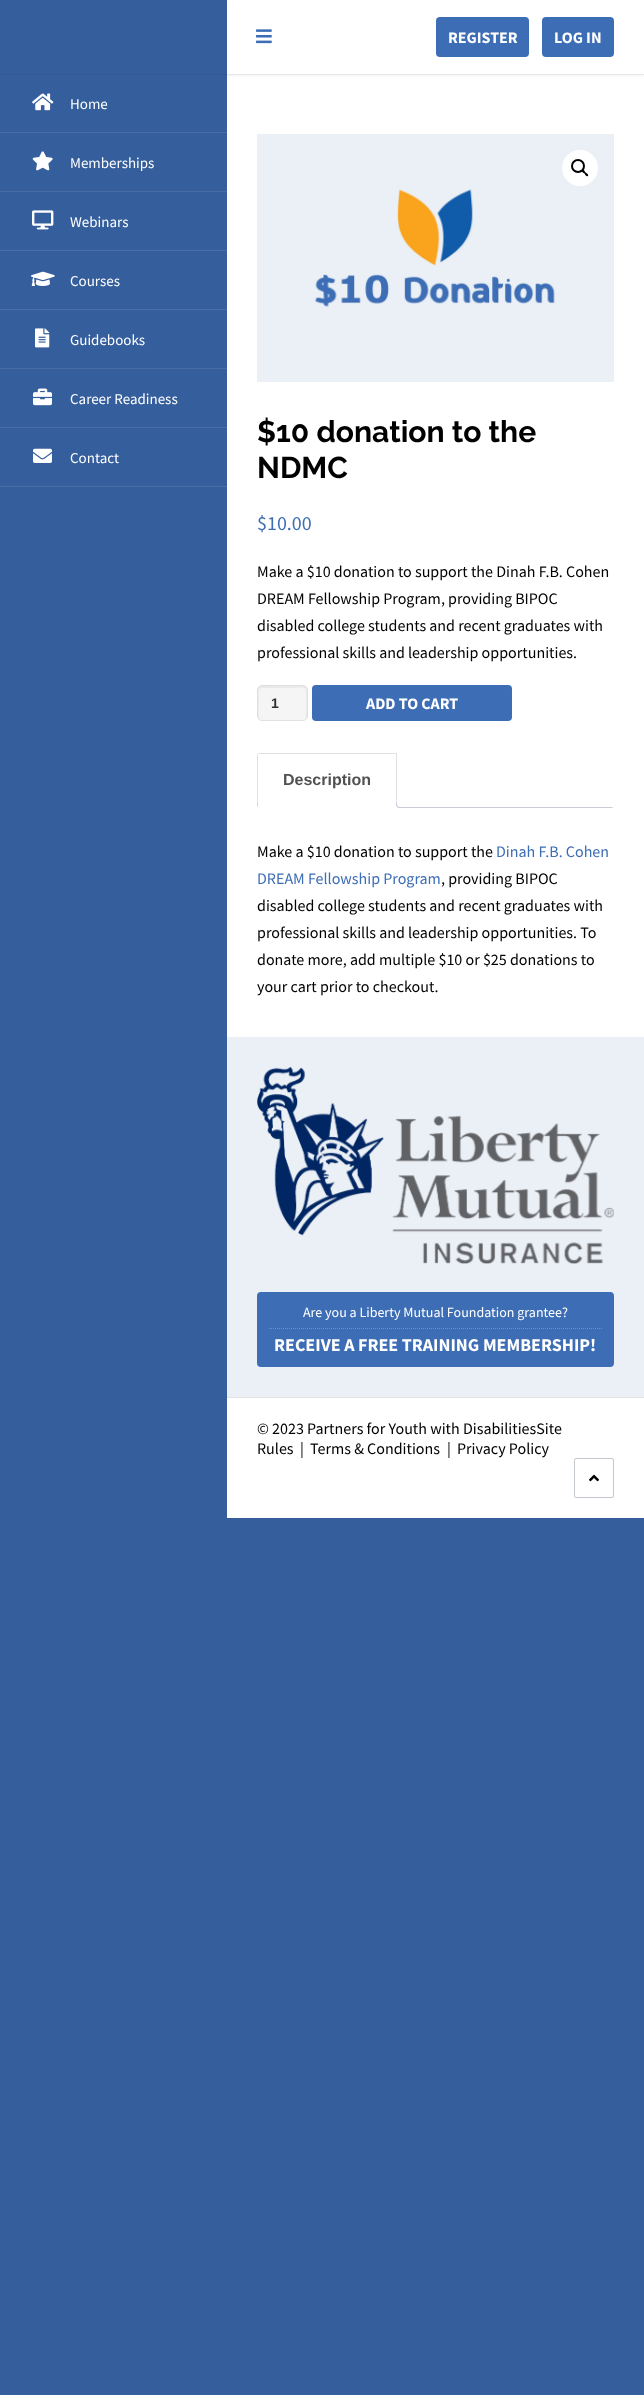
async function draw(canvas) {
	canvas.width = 644;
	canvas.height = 2395;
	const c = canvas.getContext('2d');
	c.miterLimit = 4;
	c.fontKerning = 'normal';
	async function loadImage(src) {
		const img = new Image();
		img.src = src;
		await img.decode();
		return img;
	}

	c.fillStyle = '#355e9c';
	c.fillRect(0, 0, 644, 2395);
	c.fillStyle = '#f2f2f2';
	c.fillRect(227, 74, 417, 1);
	c.fillStyle = '#fff';
	c.fillRect(227, 75, 417, 962);
	c.fillStyle = '#0000000d';
	c.filter = 'blur(1px)';
	c.beginPath();
	c.rect(227, 2, 417, 74);
	c.fill();
	c.filter = 'none';
	c.fillStyle = '#fff';
	c.fillRect(227, 0, 417, 74);
	c.drawImage(await loadImage('img1.png'), 256, 29, 16, 15);
	c.fillStyle = '#3d6db5';
	c.beginPath();
	c.roundRect(436, 17, 93, 40, 4);
	c.fill();
	c.font = 'bold 16px Source Sans Pro';
	c.fillStyle = '#fff';
	c.fillText('REGISTER', 448, 43);
	c.fillStyle = '#3d6db5';
	c.beginPath();
	c.roundRect(542, 17, 72, 40, 4);
	c.fill();
	c.fillStyle = '#fff';
	c.fillText('LOG IN', 554, 43);
	c.fillStyle = '#325994';
	c.fillRect(0, 74, 227, 1);
	c.drawImage(await loadImage('img2.png'), 32, 93, 22, 18);
	c.font = '15px Source Sans Pro';
	c.fillStyle = '#fff';
	c.fillText('Home', 70, 109);
	c.fillStyle = '#496ea6';
	c.fillRect(0, 132, 227, 1);
	c.drawImage(await loadImage('img3.png'), 32, 151, 21, 20);
	c.fillStyle = '#fff';
	c.fillText('Memberships', 70, 168);
	c.fillStyle = '#496ea6';
	c.fillRect(0, 191, 227, 1);
	c.drawImage(await loadImage('img4.png'), 32, 210, 22, 20);
	c.fillStyle = '#fff';
	c.fillText('Webinars', 70, 227);
	c.fillStyle = '#496ea6';
	c.fillRect(0, 250, 227, 1);
	c.drawImage(await loadImage('img5.png'), 31, 271, 24, 15);
	c.fillStyle = '#fff';
	c.fillText('Courses', 70, 286);
	c.fillStyle = '#496ea6';
	c.fillRect(0, 309, 227, 1);
	c.drawImage(await loadImage('img6.png'), 35, 328, 15, 20);
	c.fillStyle = '#fff';
	c.fillText('Guidebooks', 70, 345);
	c.fillStyle = '#496ea6';
	c.fillRect(0, 368, 227, 1);
	c.drawImage(await loadImage('img7.png'), 33, 388, 19, 18);
	c.fillStyle = '#fff';
	c.fillText('Career Readiness', 70, 404);
	c.fillStyle = '#496ea6';
	c.fillRect(0, 427, 227, 1);
	c.drawImage(await loadImage('img8.png'), 33, 448, 19, 15);
	c.fillStyle = '#fff';
	c.fillText('Contact', 70, 463);
	c.fillStyle = '#496ea6';
	c.fillRect(0, 486, 227, 1);
	c.drawImage(await loadImage('img9.png'), 257, 134, 357, 248);
	c.fillStyle = '#fff';
	c.beginPath();
	c.arc(580, 168, 18, 0, 2 * Math.PI);
	c.fill();
	c.beginPath();
	c.arc(578, 166, 6, 0, 2 * Math.PI);
	c.strokeStyle = '#000';
	c.lineWidth = 2;
	c.stroke();
	c.fillStyle = '#000';
	c.beginPath();
	c.moveTo(582, 170);
	c.bezierCurveTo(583.5, 169, 585, 171.5, 585.5, 172.5);
	c.bezierCurveTo(586.5, 173, 589, 174.5, 588, 176);
	c.bezierCurveTo(586.5, 177, 585, 174.5, 584.5, 173.5);
	c.bezierCurveTo(583.5, 173, 581, 171.5, 582, 170);
	c.closePath();
	c.fill();
	c.font = 'bold 30px Raleway';
	c.fillText('$10 donation to the', 257, 442);
	c.fillText('NDMC', 257, 478);
	c.font = '20px Source Sans Pro';
	c.fillStyle = '#3d6db5';
	c.fillText('$10.00', 257, 530);
	c.font = '16px Source Sans Pro';
	c.fillStyle = '#000';
	for (const [text, x, y] of [
		['Make a $10 donation to support the Dinah F.B. Cohen', 257, 577],
		['DREAM Fellowship Program, providing BIPOC', 257, 604],
		['disabled college students and recent graduates with', 257, 631],
		['professional skills and leadership opportunities.', 257, 658],
	]) {
		c.fillText(text, x, y);
	}
	c.fillStyle = '#f5f5f5';
	c.beginPath();
	c.roundRect(257, 685, 51, 36, 5);
	c.fill();
	c.fillStyle = '#e9e9e9';
	c.beginPath();
	c.moveTo(262, 688);
	c.lineTo(289, 688);
	c.bezierCurveTo(307, 688, 306, 684, 306, 700);
	c.bezierCurveTo(306, 703, 307, 718, 305, 719);
	c.bezierCurveTo(309, 717, 307, 710, 307, 707);
	c.lineTo(307, 694);
	c.bezierCurveTo(307, 685, 306, 686, 296, 686);
	c.lineTo(282, 686);
	c.bezierCurveTo(254, 686, 258, 681, 258, 707);
	c.bezierCurveTo(258, 710, 256, 717, 260, 719);
	c.bezierCurveTo(258, 718, 259, 703, 259, 700);
	c.bezierCurveTo(259, 697, 257, 688, 262, 688);
	c.closePath();
	c.fill();
	c.beginPath();
	c.roundRect(257.5, 685.5, 50, 35, 4.5);
	c.strokeStyle = '#00000014';
	c.lineWidth = 1;
	c.stroke();
	c.font = 'bold 14px Liberation Sans';
	c.fillStyle = '#313131';
	c.fillText('1', 271, 708);
	c.fillStyle = '#3d6db5';
	c.beginPath();
	c.roundRect(312, 685, 200, 36, 4);
	c.fill();
	c.font = 'bold 16px Source Sans Pro';
	c.fillStyle = '#fff';
	c.fillText('ADD TO CART', 366, 709);
	c.save();
	c.beginPath();
	c.roundRect(257, 753, 357, 55, 3);
	c.clip();
	c.fillStyle = '#cfc8d8';
	c.fillRect(257, 807, 357, 1);
	c.restore();
	c.beginPath();
	c.roundRect(257, 753, 140, 55, [3, 0, 0, 3]);
	c.fill();
	c.save();
	c.beginPath();
	c.roundRect(257, 753, 357, 55, 3);
	c.clip();
	c.fillStyle = '#e1e1e1';
	c.fillRect(257, 753, 140, 1);
	c.restore();
	c.fillStyle = '#e1e1e1';
	c.fillRect(396, 753, 1, 55);
	c.save();
	c.beginPath();
	c.roundRect(257, 753, 357, 55, 3);
	c.clip();
	c.fillStyle = '#fff';
	c.fillRect(257, 807, 140, 1);
	c.fillStyle = '#e1e1e1';
	c.fillRect(257, 753, 1, 55);
	c.restore();
	c.font = 'bold 16px Liberation Sans';
	c.fillStyle = '#515151';
	c.fillText('Description', 283, 785);
	c.fillStyle = '#fff';
	c.beginPath();
	c.moveTo(259.5, 808);
	c.bezierCurveTo(260, 807, 260, 806, 260, 805);
	c.lineTo(258, 805);
	c.lineTo(257.5, 806.5);
	c.bezierCurveTo(257.5, 807, 258.5, 808, 259.5, 808);
	c.closePath();
	c.fill();
	c.fillStyle = '#cfc8d8';
	c.beginPath();
	c.moveTo(257.5, 806);
	c.lineTo(257, 803);
	c.lineTo(258, 803);
	c.bezierCurveTo(258, 804.5, 258, 805.5, 257.5, 806);
	c.closePath();
	c.fill();
	c.fillStyle = '#fff';
	c.beginPath();
	c.moveTo(394, 805);
	c.bezierCurveTo(394, 806, 394, 807, 394.5, 808);
	c.lineTo(399, 808);
	c.bezierCurveTo(397.5, 807.5, 396.5, 806.5, 396, 805);
	c.closePath();
	c.fill();
	c.fillStyle = '#cfc8d8';
	c.beginPath();
	c.moveTo(396, 803);
	c.lineTo(401, 803);
	c.lineTo(401, 808);
	c.bezierCurveTo(398.5, 808, 396, 807, 396, 804);
	c.closePath();
	c.moveTo(397, 803);
	c.lineTo(401, 803);
	c.lineTo(401, 807);
	c.bezierCurveTo(399, 807, 397, 806.5, 397, 804);
	c.closePath();
	c.fill('evenodd');
	c.font = '16px Source Sans Pro';
	c.fillStyle = '#000';
	c.fillText('Make a $10 donation to support the', 257, 857);
	c.fillStyle = '#3d6db5';
	c.fillText('Dinah F.B. Cohen', 496, 857);
	c.fillText('DREAM Fellowship Program', 257, 884);
	c.fillStyle = '#000';
	for (const [text, x, y] of [
		[', providing BIPOC', 441, 884],
		['disabled college students and recent graduates with', 257, 911],
		['professional skills and leadership opportunities. To', 257, 938],
		['donate more, add multiple $10 or $25 donations to', 257, 965],
		['your cart prior to checkout.', 257, 992],
	]) {
		c.fillText(text, x, y);
	}
	c.fillStyle = '#ebf0f6';
	c.fillRect(227, 1037, 417, 360);
	c.drawImage(await loadImage('img10.png'), 257, 1067, 357, 197);
	c.fillStyle = '#3d6db5';
	c.beginPath();
	c.roundRect(257, 1292, 357, 75, 4);
	c.fill();
	c.beginPath();
	c.moveTo(269, 1328.5);
	c.lineTo(602, 1328.5);
	c.strokeStyle = '#6e92c8';
	c.setLineDash([1, 1]);
	c.stroke();
	c.font = '14px Source Sans Pro';
	c.fillStyle = '#fff';
	c.fillText('Are you a Liberty Mutual Foundation grantee?', 303, 1317);
	c.font = 'bold 18px Source Sans Pro';
	c.fillText('RECEIVE A FREE TRAINING MEMBERSHIP!', 274, 1351);
	c.fillRect(227, 1398, 417, 120);
	c.fillStyle = '#e3e3e3';
	c.fillRect(227, 1397, 417, 1);
	c.font = '16px Source Sans Pro';
	c.fillStyle = '#000';
	for (const [text, x, y] of [
		['© 2023 Partners for Youth with DisabilitiesSite', 257, 1434],
		['Rules', 257, 1454],
		['|', 300, 1454],
		['Terms & Conditions', 310, 1454],
		['|', 447, 1454],
		['Privacy Policy', 457, 1454],
	]) {
		c.fillText(text, x, y);
	}
	c.beginPath();
	c.roundRect(574.5, 1458.5, 39, 39, 1.5);
	c.strokeStyle = '#c2c8ce';
	c.setLineDash([]);
	c.stroke();
	c.drawImage(await loadImage('img11.png'), 589, 1474, 10, 8);
}

draw(document.querySelector('canvas'));
